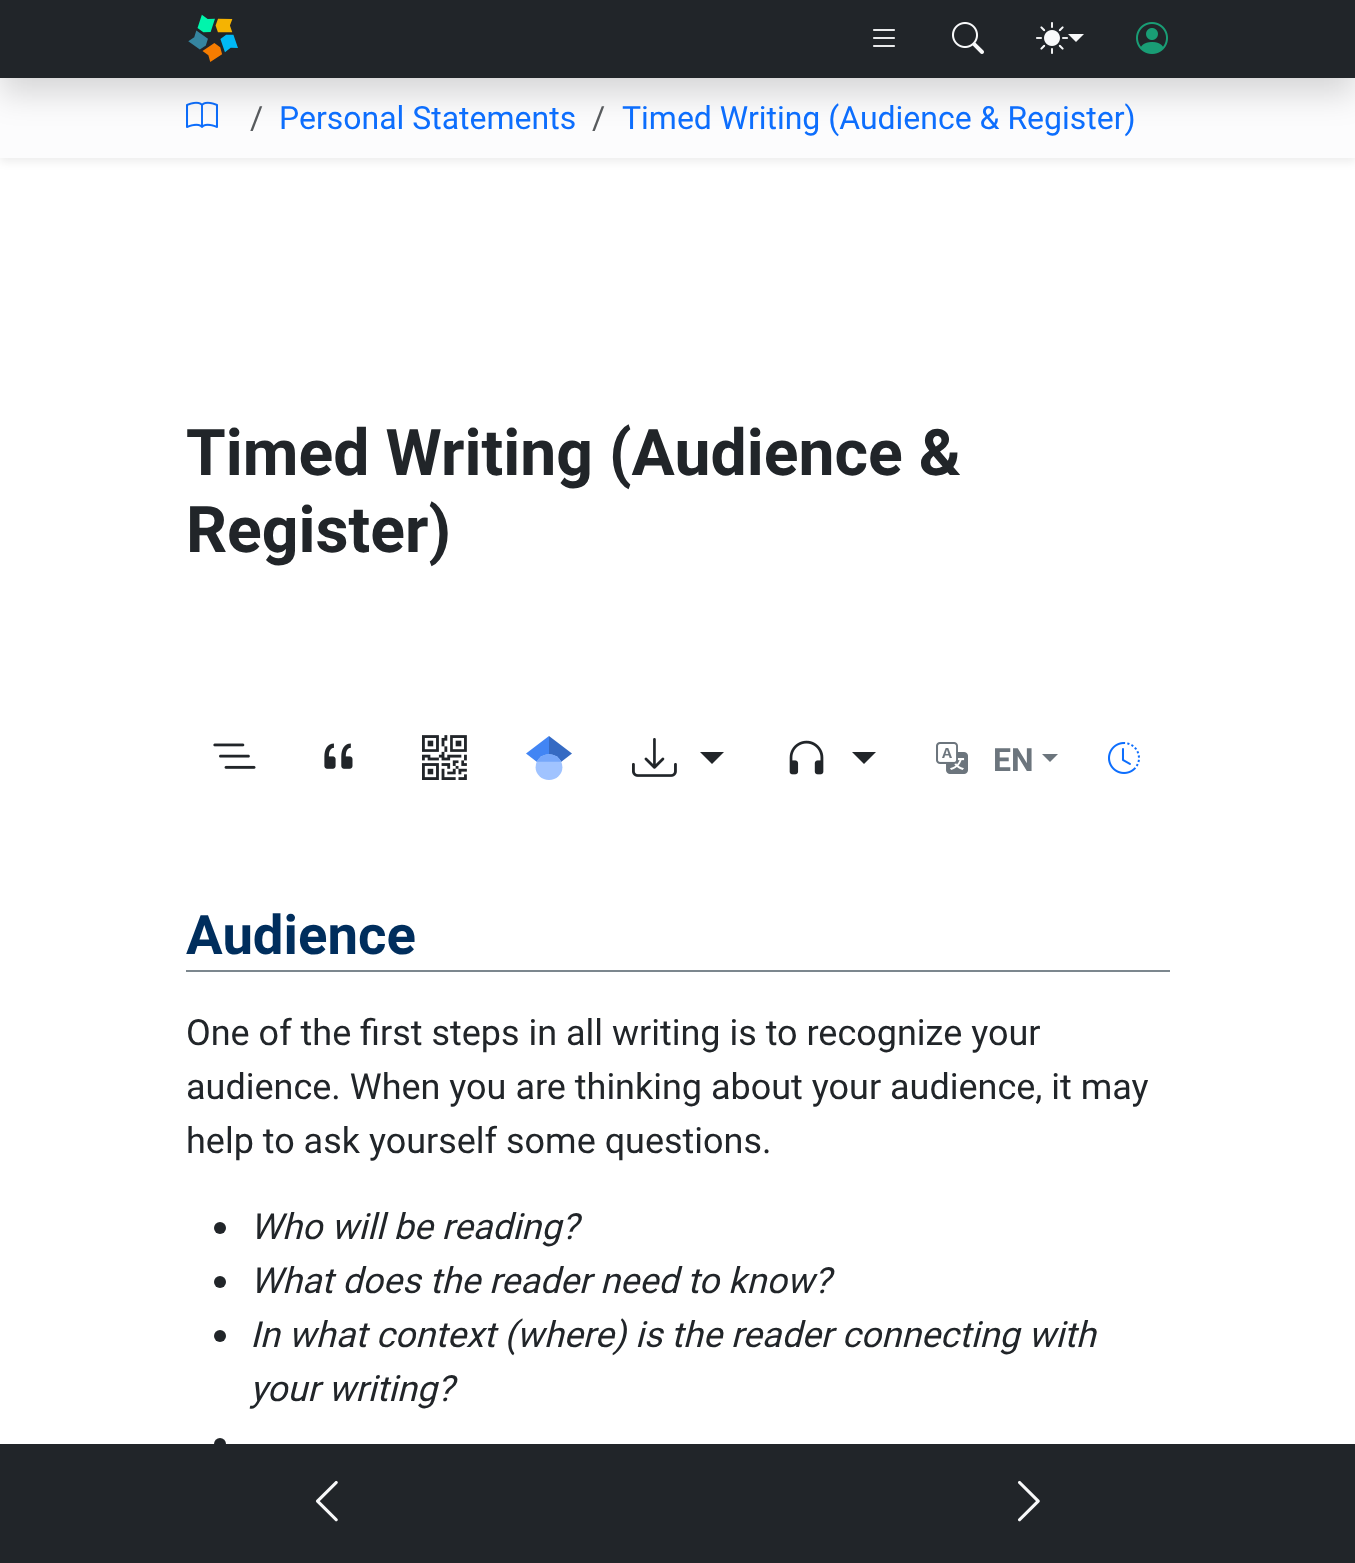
async function draw(canvas) {
	canvas.width = 1355;
	canvas.height = 1563;
	const c = canvas.getContext('2d');
	c.miterLimit = 4;
	c.fontKerning = 'normal';
	async function loadImage(src) {
		const img = new Image();
		img.src = src;
		await img.decode();
		return img;
	}

	c.fillStyle = '#fff';
	c.fillRect(0, 0, 1355, 1563);
	c.fillStyle = '#00000012';
	c.filter = 'blur(4px)';
	c.beginPath();
	c.rect(0, 82, 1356, 80);
	c.fill();
	c.filter = 'none';
	c.fillStyle = '#fcfcfd';
	c.fillRect(0, 79, 1355, 79);
	c.drawImage(await loadImage('img6.png'), 186, 101, 32, 27);
	c.fillStyle = '#00000026';
	c.filter = 'blur(16px)';
	c.beginPath();
	c.rect(0, 16, 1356, 78);
	c.fill();
	c.filter = 'none';
	c.fillStyle = '#212529';
	c.fillRect(0, 0, 1355, 78);
	c.drawImage(await loadImage('img1.png'), 188, 14, 50, 48);
	c.drawImage(await loadImage('img2.png'), 873, 29, 22, 18);
	c.drawImage(await loadImage('img3.png'), 952, 22, 32, 32);
	c.drawImage(await loadImage('img4.png'), 1036, 22, 32, 32);
	c.fillStyle = '#f8f9fa';
	c.beginPath();
	c.moveTo(1068, 34);
	c.lineTo(1084, 34);
	c.lineTo(1076, 42);
	c.closePath();
	c.fill();
	c.drawImage(await loadImage('img5.png'), 1136, 22, 32, 32);
	c.font = '32px Roboto';
	c.fillStyle = '#585b5e';
	c.fillText('/', 250, 129);
	c.fillStyle = '#0d6efd';
	c.fillText('Personal Statements', 279, 129);
	c.fillStyle = '#585b5e';
	c.fillText('/', 592, 129);
	c.fillStyle = '#0d6efd';
	c.fillText('Timed Writing (Audience & Register)', 622, 129);
	c.font = 'bold 64.3px Roboto';
	c.fillStyle = '#212529';
	c.fillText('Timed Writing (Audience &', 186, 475);
	c.fillText('Register)', 186, 552);
	c.drawImage(await loadImage('img7.png'), 213, 743, 43, 26);
	c.drawImage(await loadImage('img8.png'), 324, 743, 29, 26);
	c.drawImage(await loadImage('img9.png'), 422, 735, 45, 45);
	c.drawImage(await loadImage('img10.png'), 526, 736, 46, 44);
	c.drawImage(await loadImage('img11.png'), 632, 738, 45, 39);
	c.beginPath();
	c.moveTo(700, 752);
	c.lineTo(724, 752);
	c.lineTo(712, 764);
	c.closePath();
	c.fill();
	c.drawImage(await loadImage('img12.png'), 789, 740, 35, 35);
	c.beginPath();
	c.moveTo(852, 752);
	c.lineTo(876, 752);
	c.lineTo(864, 764);
	c.closePath();
	c.fill();
	c.drawImage(await loadImage('img13.png'), 936, 742, 32, 32);
	c.font = 'bold 32px Roboto';
	c.fillStyle = '#6c757d';
	c.fillText('EN', 993, 771);
	c.beginPath();
	c.moveTo(1042, 754);
	c.lineTo(1058, 754);
	c.lineTo(1050, 762);
	c.closePath();
	c.fill();
	c.drawImage(await loadImage('img14.png'), 1108, 742, 32, 32);
	c.fillStyle = '#7c878e';
	c.fillRect(186, 970, 984, 2);
	c.font = 'bold 54.5px Roboto';
	c.fillStyle = '#002e5d';
	c.fillText('Audience', 186, 954);
	c.font = '36px Roboto';
	c.fillStyle = '#212529';
	for (const [text, x, y] of [
		['One of the first steps in all writing is to recognize your', 186, 1045],
		['audience. When you are thinking about your audience, it may', 186, 1099],
		['help to ask yourself some questions.', 186, 1153],
	]) {
		c.fillText(text, x, y);
	}
	c.beginPath();
	c.arc(220, 1228, 6, 0, 2 * Math.PI);
	c.fill();
	c.font = 'italic 36px Roboto';
	c.fillText('Who will be reading?', 250, 1239);
	c.beginPath();
	c.arc(220, 1282, 6, 0, 2 * Math.PI);
	c.fill();
	c.fillText('What does the reader need to know?', 250, 1293);
	c.beginPath();
	c.arc(220, 1336, 6, 0, 2 * Math.PI);
	c.fill();
	c.fillText('In what context (where) is the reader connecting with', 250, 1347);
	c.fillText('your writing?', 250, 1401);
	c.beginPath();
	c.arc(220, 1444, 6, 0, 2 * Math.PI);
	c.fill();
	c.fillRect(0, 1444, 1355, 119);
	c.drawImage(await loadImage('img15.png'), 315, 1480, 23, 42);
	c.drawImage(await loadImage('img16.png'), 1017, 1480, 23, 42);
}

draw(document.querySelector('canvas'));
